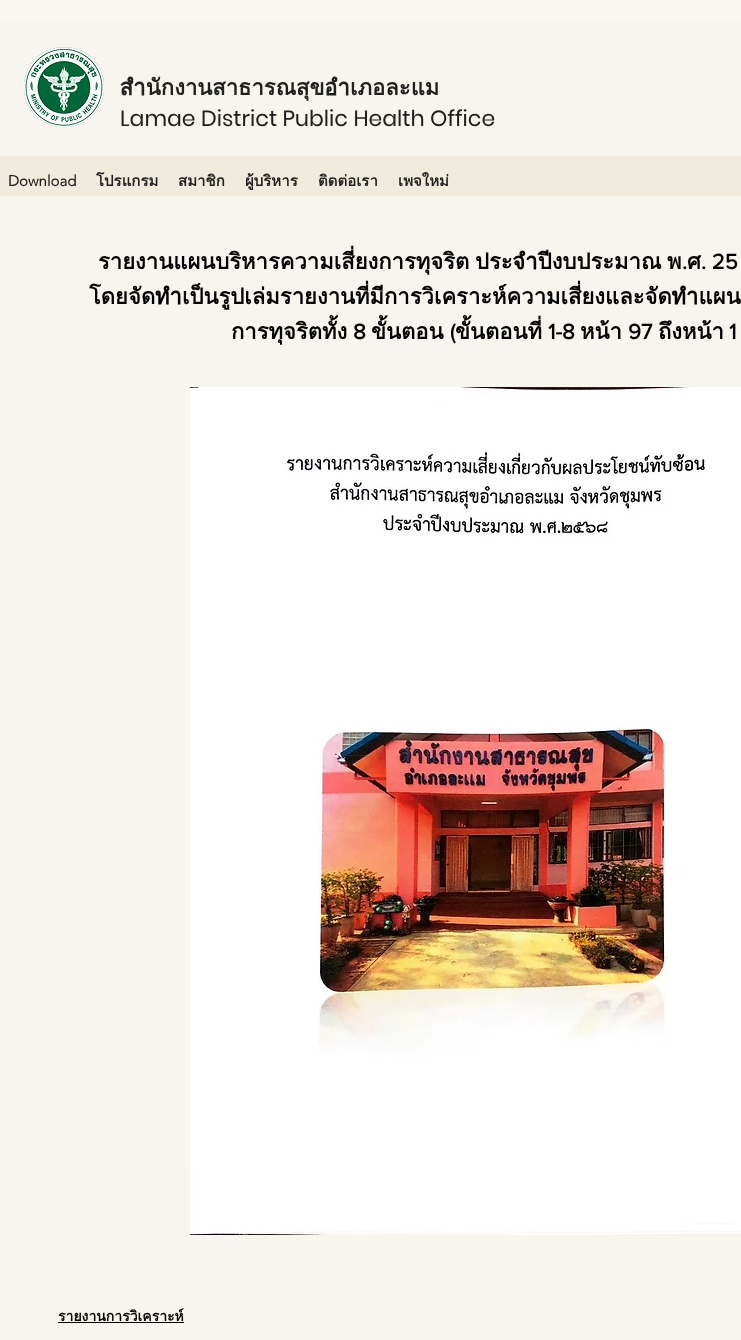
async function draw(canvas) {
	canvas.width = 741;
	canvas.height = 1340;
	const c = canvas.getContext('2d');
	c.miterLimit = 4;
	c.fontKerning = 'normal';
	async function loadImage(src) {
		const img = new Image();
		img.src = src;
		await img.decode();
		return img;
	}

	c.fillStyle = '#f7f5ee';
	c.fillRect(0, 0, 741, 1340);
	c.drawImage(await loadImage('img1.png'), 0, 0, 741, 21);
	c.drawImage(await loadImage('img2.png'), 24, 47, 80, 80);
	c.font = 'bold 22px Loma';
	c.fillStyle = '#202020';
	c.fillText('สำนักงานสาธารณสุขอำเภอละแม', 120, 95);
	c.font = '22px Poppins';
	c.fillText('Lamae District Public Health Office', 120, 126);
	c.fillStyle = '#f1ebdd';
	c.fillRect(0, 156, 741, 40);
	c.font = 'bold 15px "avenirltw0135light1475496"';
	c.fillStyle = '#202020';
	c.fillText('Download', 8, 186);
	c.font = 'bold 15px Loma';
	for (const [text, x, y] of [
		['โปรแกรม', 96, 186],
		['สมาชิก', 178, 186],
		['ผู้บริหาร', 245, 186],
		['ติดต่อเรา', 318, 186],
		['เพจใหม่', 398, 186],
	]) {
		c.fillText(text, x, y);
	}
	c.font = 'bold 22px Loma';
	c.fillStyle = '#000';
	for (const [text, x, y] of [
		['รายงานแผนบริหารความเสี่ยงการทุจริต', 98, 269],
		['ประจำปีงบประมาณ', 475, 269],
		['พ', 667, 269],
	]) {
		c.fillText(text, x, y);
	}
	c.font = 'bold 22px "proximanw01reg"';
	c.fillText('.', 682, 269);
	c.font = 'bold 22px Loma';
	c.fillText('ศ', 687, 269);
	c.font = 'bold 22px "proximanw01reg"';
	c.fillText('. 25', 701, 269);
	c.wordSpacing = '-2px';
	c.font = 'bold 22px Loma';
	c.fillText('โดยจัดทำเป็นรูปเล่มรายงานที่มีการวิเคราะห์ความเสี่ยงและจัดทำแผน', 89, 304);
	c.wordSpacing = '0px';
	c.fillText('การทุจริตทั้ง', 231, 339);
	c.font = 'bold 22px "proximanw01reg"';
	c.fillText('8', 353, 339);
	c.font = 'bold 22px Loma';
	c.fillText('ขั้นตอน', 371, 339);
	c.font = 'bold 22px "proximanw01reg"';
	c.fillText('(', 450, 339);
	c.font = 'bold 22px Loma';
	c.fillText('ขั้นตอนที่', 455, 339);
	c.fillText('หน้า', 580, 339);
	c.font = 'bold 22px "proximanw01reg"';
	c.fillText('97', 628, 339);
	c.font = 'bold 22px Loma';
	c.fillText('ถึงหน้า', 658, 339);
	c.font = 'bold 22px "proximanw01reg"';
	c.fillText('1-8', 548, 339);
	c.fillText('1', 729, 339);
	c.drawImage(await loadImage('img3.png'), 190, 387, 551, 848);
	c.font = 'bold 14px Loma';
	c.fillText('รายงานการวิเคราะห์', 58, 1321);
	c.fillRect(58, 1322, 126, 1);
}

draw(document.querySelector('canvas'));
